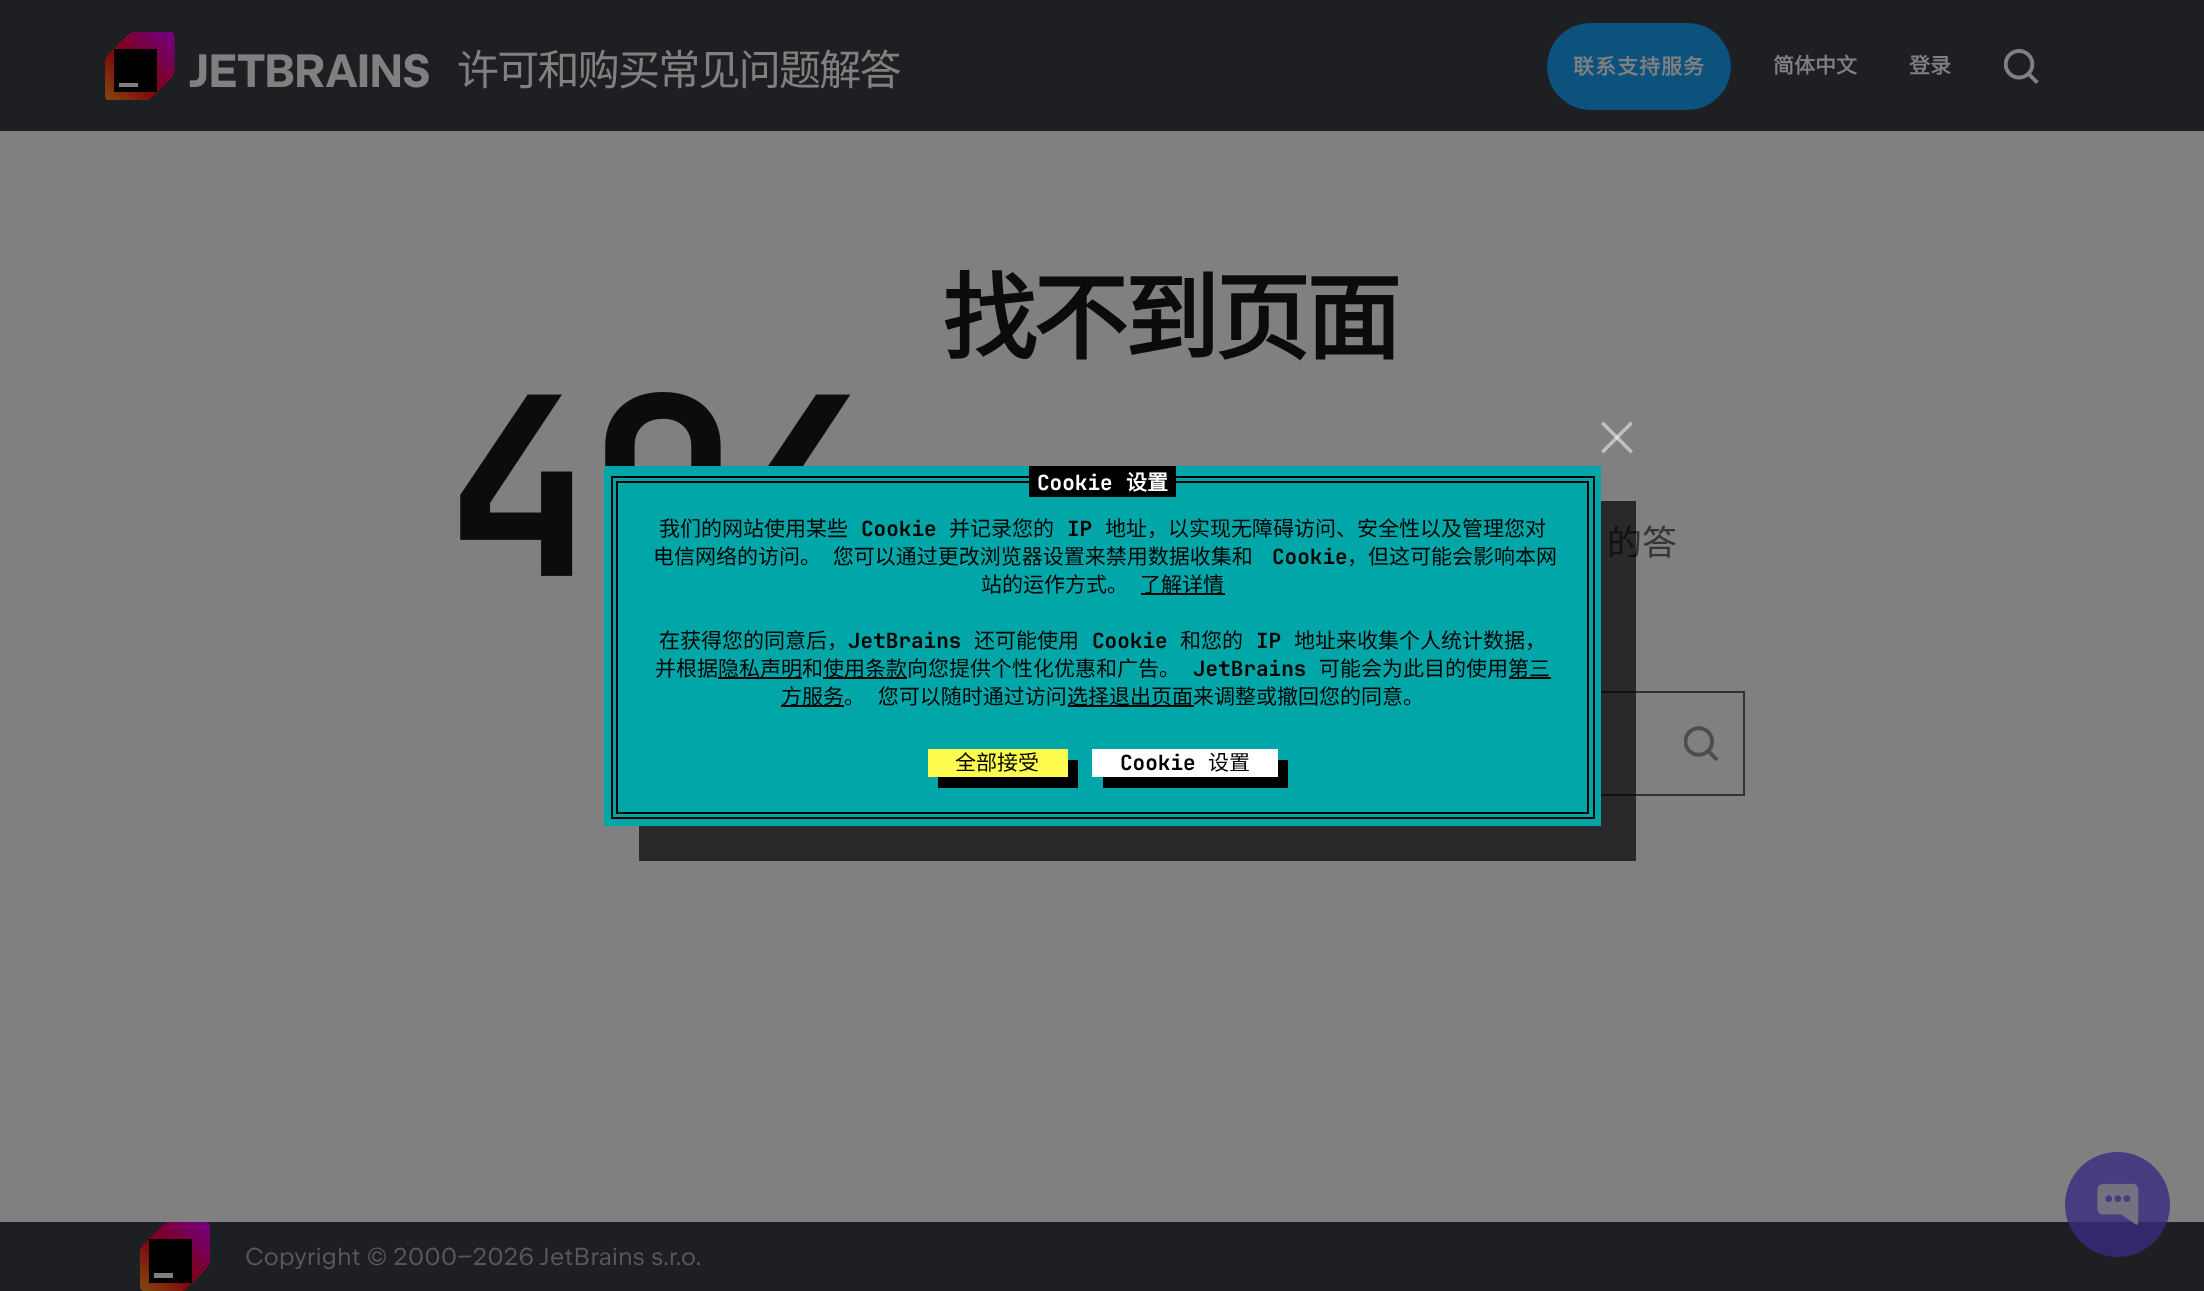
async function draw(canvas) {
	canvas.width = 2204;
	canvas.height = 1291;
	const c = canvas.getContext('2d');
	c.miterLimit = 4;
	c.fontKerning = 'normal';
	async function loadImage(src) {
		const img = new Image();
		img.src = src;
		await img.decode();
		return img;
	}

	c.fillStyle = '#808080';
	c.fillRect(0, 0, 2204, 1291);
	c.fillStyle = '#1e1f22';
	c.fillRect(0, 0, 2204, 131);
	c.drawImage(await loadImage('img1.png'), 105, 32, 324, 68);
	c.letterSpacing = '-1.75px';
	c.font = '42px Noto Sans CJK SC';
	c.fillStyle = '#808080';
	c.fillText('许可和购买常见问题解答', 457, 85);
	c.fillStyle = '#0c527d';
	c.beginPath();
	c.roundRect(1547, 23, 184, 87, 43.5);
	c.fill();
	c.letterSpacing = '1px';
	c.font = 'bold 21px Noto Sans CJK SC';
	c.fillStyle = '#808080';
	c.fillText('联系支持服务', 1573, 74);
	c.letterSpacing = '0px';
	c.fillText('简体中文', 1773, 73);
	c.fillText('登录', 1909, 73);
	c.drawImage(await loadImage('img2.png'), 2004, 49, 35, 35);
	c.drawImage(await loadImage('img3.png'), 460, 392, 391, 184);
	c.letterSpacing = '-3.5px';
	c.font = 'bold 94.5px Noto Sans CJK SC';
	c.fillStyle = '#0b0b0b';
	c.fillText('找不到页面', 942, 352);
	c.letterSpacing = '0px';
	c.font = '35px Noto Sans CJK SC';
	c.fillStyle = '#353535';
	c.fillText('的答', 1607, 555);
	c.strokeStyle = '#323233';
	c.lineWidth = 2;
	c.strokeRect(943, 692, 801, 103);
	c.drawImage(await loadImage('img4.png'), 1684, 726, 35, 35);
	c.fillStyle = '#1e1f22';
	c.fillRect(0, 1222, 2204, 69);
	c.drawImage(await loadImage('img5.png'), 140, 1222, 70, 69);
	c.font = '24.5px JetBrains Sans';
	c.fillStyle = '#58595a';
	c.fillText('Copyright © 2000–2026', 245, 1265);
	c.fillText('JetBrains s.r.o.', 540, 1265);
	c.fillStyle = '#000000ad';
	c.beginPath();
	c.moveTo(639, 826);
	c.lineTo(639, 861);
	c.lineTo(1636, 861);
	c.lineTo(1636, 501);
	c.lineTo(1601, 501);
	c.lineTo(1601, 826);
	c.closePath();
	c.fill();
	c.fillStyle = '#01a7a8';
	c.fillRect(604, 466, 997, 360);
	c.fillStyle = '#bfbfbf';
	c.beginPath();
	c.moveTo(1601, 451);
	c.lineTo(1630.5, 421.5);
	c.lineTo(1633, 424);
	c.lineTo(1603.5, 453.5);
	c.closePath();
	c.fill();
	c.fillStyle = '#ffffff80';
	c.beginPath();
	c.moveTo(1603.5, 421.5);
	c.lineTo(1633, 451);
	c.lineTo(1630.5, 453.5);
	c.lineTo(1601, 424);
	c.closePath();
	c.fill();
	for (const [x, y, w, h, color] of [
		[616, 481, 973, 2, '#000'],
		[1587, 481, 2, 333, '#000'],
		[616, 481, 2, 268, '#000'],
		[611, 476, 983, 2, '#000'],
		[1029, 466, 147, 31, '#000'],
	]) {
		c.fillStyle = color;
		c.fillRect(x, y, w, h);
	}
	c.font = 'bold 21px JetBrains Mono';
	c.fillStyle = '#fff';
	c.fillText('Cookie', 1037, 490);
	c.font = 'bold 21px Noto Sans CJK SC';
	c.fillText('设置', 1126, 490);
	c.fillStyle = '#000';
	c.fillRect(1593, 476, 2, 343);
	c.fillRect(611, 476, 2, 271);
	c.font = '21px Noto Sans CJK SC';
	c.fillText('我们的网站使用某些', 659, 536);
	c.font = 'bold 21px JetBrains Mono';
	c.fillText('Cookie', 861, 536);
	c.font = '21px Noto Sans CJK SC';
	c.fillText('并记录您的', 949, 536);
	c.font = 'bold 21px JetBrains Mono';
	c.fillText('IP', 1067, 536);
	c.font = '21px Noto Sans CJK SC';
	c.fillText('地址，以实现无障碍访问、安全性以及管理您对', 1105, 536);
	c.wordSpacing = '7px';
	c.fillText('电信网络的访问。 您可以通过更改浏览器设置来禁用数据收集和', 653, 564);
	c.wordSpacing = '0px';
	c.font = 'bold 21px JetBrains Mono';
	c.fillText('Cookie', 1272, 564);
	c.font = '21px Noto Sans CJK SC';
	c.fillText('，但这可能会影响本网', 1347, 564);
	c.fillText('站的运作方式。', 981, 592);
	c.fillRect(1141, 593, 84, 2);
	c.fillText('了解详情', 1140, 592);
	c.fillText('在获得您的同意后，', 659, 648);
	c.font = 'bold 21px JetBrains Mono';
	c.fillText('JetBrains', 848, 648);
	c.font = '21px Noto Sans CJK SC';
	c.fillText('还可能使用', 974, 648);
	c.font = 'bold 21px JetBrains Mono';
	c.fillText('Cookie', 1092, 648);
	c.font = '21px Noto Sans CJK SC';
	c.fillText('和您的', 1180, 648);
	c.font = 'bold 21px JetBrains Mono';
	c.fillText('IP', 1256, 648);
	c.font = '21px Noto Sans CJK SC';
	c.fillText('地址来收集个人统计数据，', 1294, 648);
	c.fillText('并根据', 655, 676);
	c.fillRect(718, 677, 84, 2);
	c.fillText('隐私声明和', 718, 676);
	c.fillRect(823, 677, 84, 2);
	c.fillText('使用条款向您提供个性化优惠和广告。', 823, 676);
	c.font = 'bold 21px JetBrains Mono';
	c.fillText('JetBrains', 1193, 676);
	c.font = '21px Noto Sans CJK SC';
	c.fillText('可能会为此目的使用', 1319, 676);
	c.fillRect(1509, 677, 42, 2);
	c.fillText('第三', 1508, 676);
	c.fillRect(781, 705, 63, 2);
	c.fillText('方服务', 781, 704);
	c.wordSpacing = '8px';
	c.fillText('。 您可以随时通过访问', 844, 704);
	c.fillRect(1068, 705, 126, 2);
	c.wordSpacing = '0px';
	c.fillText('选择退出页面来调整或撤回您的同意。', 1067, 704);
	for (const [x, y, w, h, color] of [
		[616, 812, 973, 2, '#000'],
		[616, 749, 2, 65, '#000'],
		[611, 817, 983, 2, '#000'],
		[611, 747, 2, 72, '#000'],
	]) {
		c.fillStyle = color;
		c.fillRect(x, y, w, h);
	}
	c.beginPath();
	c.moveTo(938, 777);
	c.lineTo(938, 788);
	c.lineTo(1078, 788);
	c.lineTo(1078, 760);
	c.lineTo(1068, 760);
	c.lineTo(1068, 777);
	c.closePath();
	c.fill();
	c.fillStyle = '#fefc4f';
	c.fillRect(928, 749, 140, 28);
	c.fillStyle = '#000';
	c.fillText('全部接受', 955, 770);
	c.beginPath();
	c.moveTo(1103, 777);
	c.lineTo(1103, 788);
	c.lineTo(1288, 788);
	c.lineTo(1288, 760);
	c.lineTo(1278, 760);
	c.lineTo(1278, 777);
	c.closePath();
	c.fill();
	c.fillStyle = '#fff';
	c.fillRect(1092, 749, 186, 28);
	c.font = 'bold 21px JetBrains Mono';
	c.fillStyle = '#000';
	c.fillText('Cookie', 1120, 770);
	c.font = '21px Noto Sans CJK SC';
	c.fillText('设置', 1208, 770);
	c.fillStyle = '#362c80cc';
	c.beginPath();
	c.arc(2117.5, 1204.5, 52.5, 0, 2 * Math.PI);
	c.fill();
	c.drawImage(await loadImage('img6.png'), 2097, 1183, 42, 42);
}

draw(document.querySelector('canvas'));
